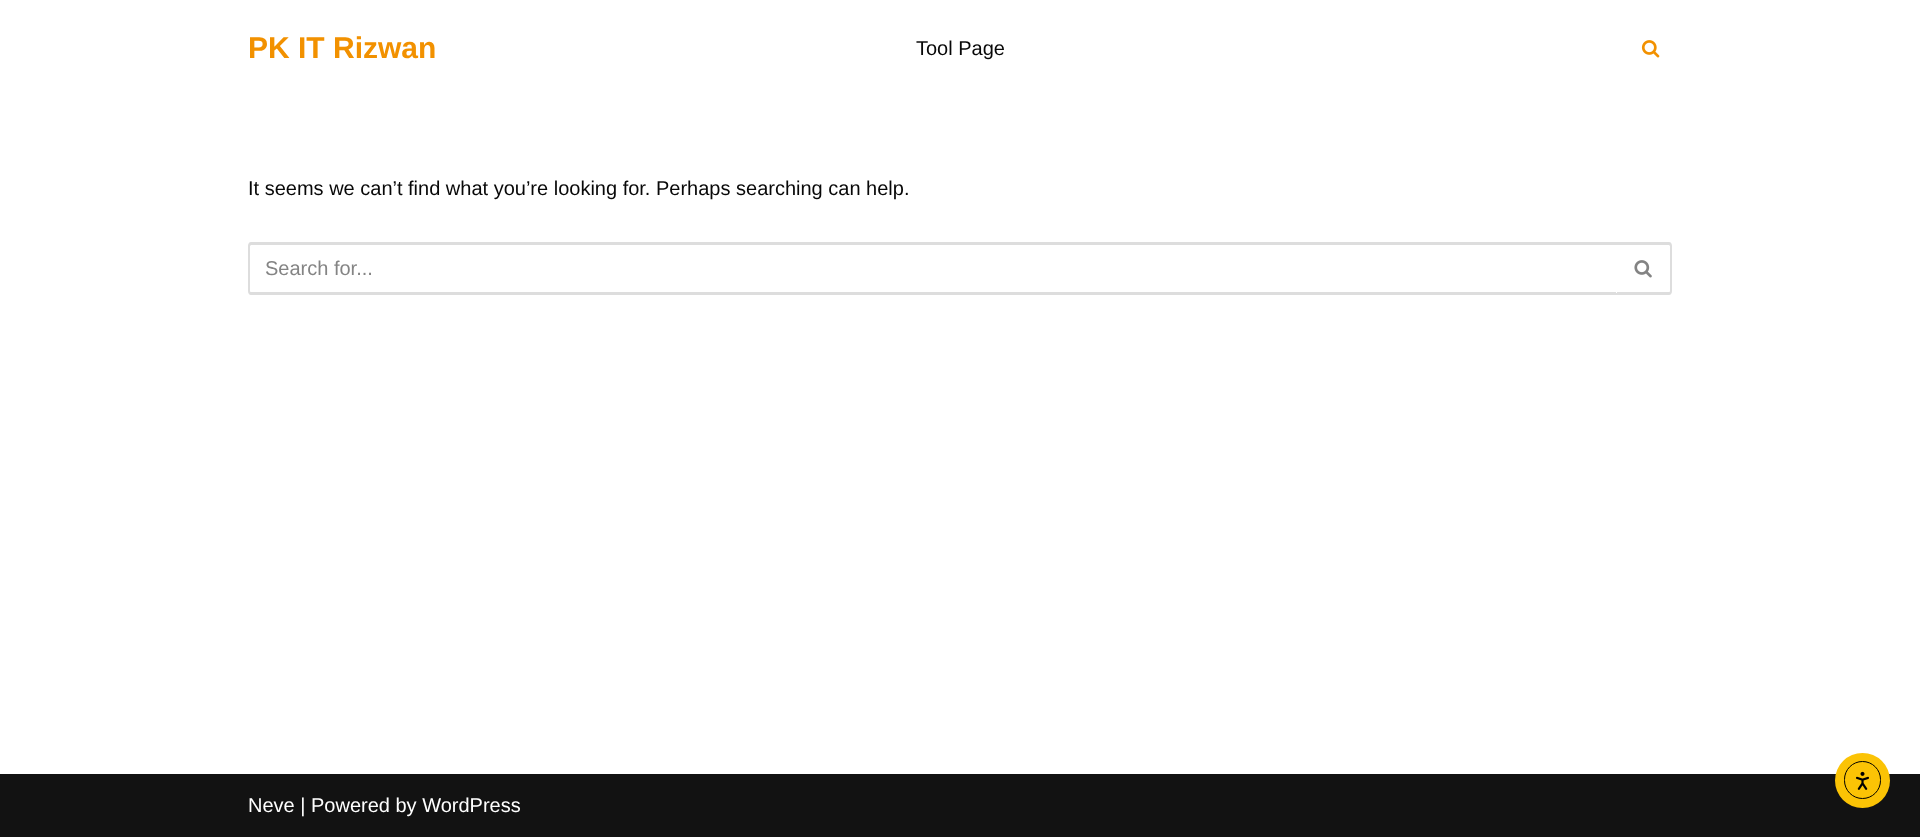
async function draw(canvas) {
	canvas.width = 1920;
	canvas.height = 837;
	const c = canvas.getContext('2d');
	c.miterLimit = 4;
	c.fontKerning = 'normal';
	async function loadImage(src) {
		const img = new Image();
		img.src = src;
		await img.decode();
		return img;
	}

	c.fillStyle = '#fff';
	c.fillRect(0, 0, 1920, 837);
	c.font = 'bold 30px Liberation Sans';
	c.fillStyle = '#f29100';
	c.fillText('PK IT Rizwan', 248, 58);
	c.font = '20px Liberation Sans';
	c.fillStyle = '#080808';
	c.fillText('Tool Page', 916, 55);
	c.drawImage(await loadImage('img1.png'), 1641, 40, 19, 18);
	c.fillText('It seems we can’t find what you’re looking for. Perhaps searching can help.', 248, 195);
	c.fillStyle = '#ddd';
	c.beginPath();
	c.moveTo(251, 242);
	c.lineTo(1616, 242);
	c.lineTo(1616, 295);
	c.lineTo(251, 295);
	c.bezierCurveTo(249, 295, 248, 293, 248, 291);
	c.lineTo(248, 246);
	c.bezierCurveTo(248, 244, 249, 242, 251, 242);
	c.closePath();
	c.moveTo(251, 245);
	c.lineTo(1616, 245);
	c.lineTo(1616, 292);
	c.lineTo(251, 292);
	c.bezierCurveTo(251, 292, 250, 292, 250, 291);
	c.lineTo(250, 246);
	c.bezierCurveTo(250, 246, 251, 245, 251, 245);
	c.closePath();
	c.fill('evenodd');
	c.fillStyle = '#848484';
	c.fillText('Search for...', 265, 275);
	c.fillStyle = '#ddd';
	c.beginPath();
	c.moveTo(1616, 242);
	c.lineTo(1669, 242);
	c.bezierCurveTo(1671, 242, 1672, 244, 1672, 246);
	c.lineTo(1672, 291);
	c.bezierCurveTo(1672, 293, 1671, 295, 1669, 295);
	c.lineTo(1616, 295);
	c.closePath();
	c.moveTo(1616, 245);
	c.lineTo(1669, 245);
	c.bezierCurveTo(1669, 245, 1670, 246, 1670, 246);
	c.lineTo(1670, 291);
	c.bezierCurveTo(1670, 292, 1669, 292, 1669, 292);
	c.lineTo(1616, 292);
	c.closePath();
	c.fill('evenodd');
	c.drawImage(await loadImage('img2.png'), 1634, 260, 18, 18);
	c.fillStyle = '#fff';
	c.fillRect(1616, 292, 1, 1);
	c.fillStyle = '#121212';
	c.fillRect(0, 774, 1920, 63);
	c.fillStyle = '#fff';
	c.fillText('Neve | Powered by WordPress', 248, 812);
	c.fillStyle = '#fbc305';
	c.beginPath();
	c.arc(1862.5, 780.5, 27.5, 0, 2 * Math.PI);
	c.fill();
	c.beginPath();
	c.roundRect(1844.5, 761.5, 36, 37, 18);
	c.strokeStyle = '#000';
	c.stroke();
	c.drawImage(await loadImage('img3.png'), 1856, 771, 13, 19);
}

draw(document.querySelector('canvas'));
